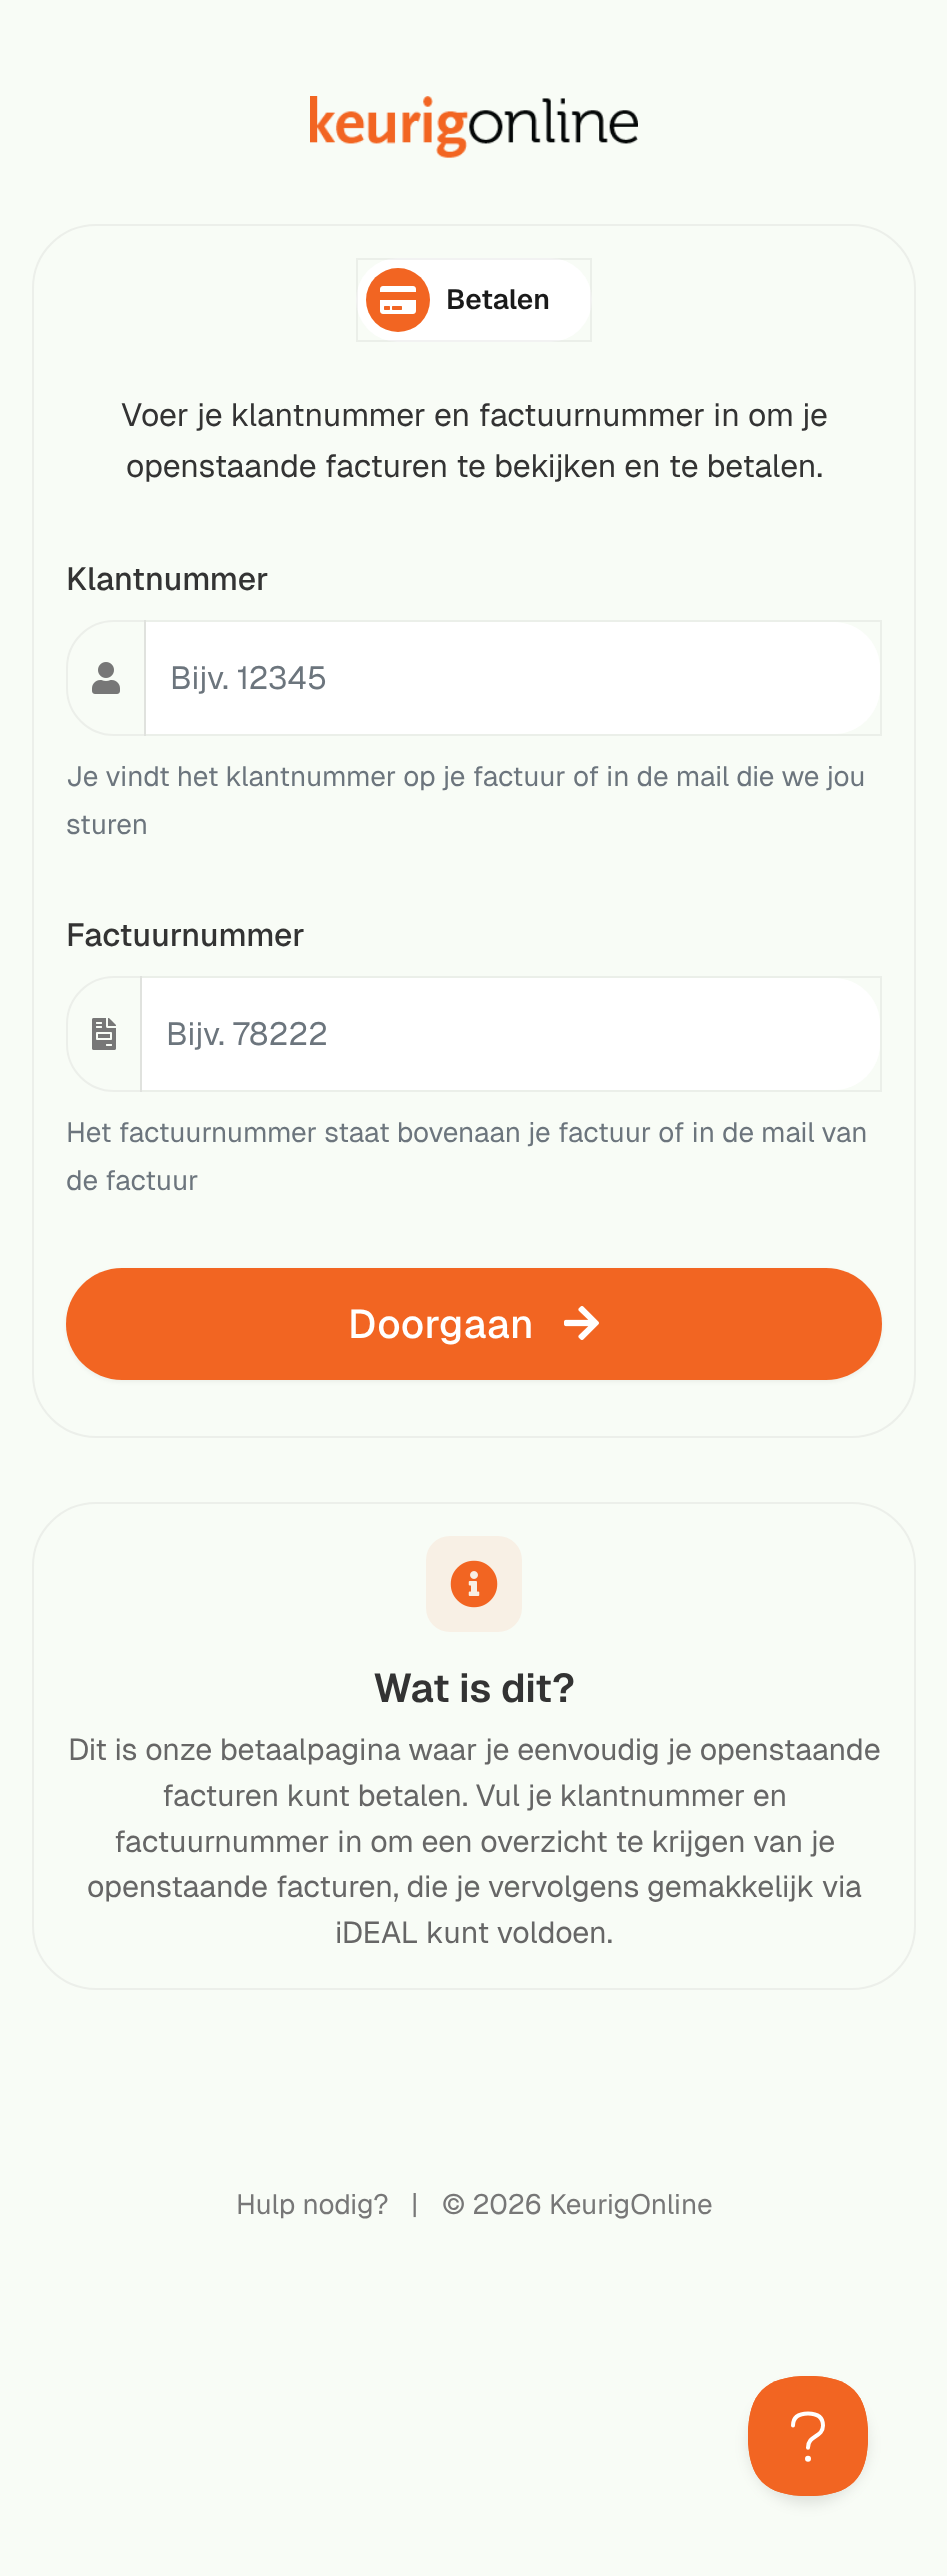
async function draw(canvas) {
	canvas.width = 947;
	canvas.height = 2576;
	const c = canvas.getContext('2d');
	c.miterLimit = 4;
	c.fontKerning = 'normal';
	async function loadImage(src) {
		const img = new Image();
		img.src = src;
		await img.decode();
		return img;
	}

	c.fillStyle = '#f8fcf6';
	c.fillRect(0, 0, 947, 2576);
	c.drawImage(await loadImage('img1.png'), 310, 96, 328, 62);
	c.beginPath();
	c.roundRect(33, 225, 882, 1212, 63);
	c.strokeStyle = '#ecefea';
	c.lineWidth = 2;
	c.stroke();
	c.fillStyle = '#fff';
	c.beginPath();
	c.roundRect(356, 258, 236, 84, 42);
	c.fill();
	c.strokeStyle = '#0000000d';
	c.strokeRect(357, 259, 234, 82);
	c.fillStyle = '#f26522';
	c.beginPath();
	c.arc(398, 300, 32, 0, 2 * Math.PI);
	c.fill();
	c.drawImage(await loadImage('img2.png'), 380, 286, 36, 28);
	c.font = '600 28px Geist';
	c.fillStyle = '#1a1a1a';
	c.fillText('Betalen', 446, 309);
	c.font = '32px Geist';
	c.fillStyle = '#333';
	c.fillText('Voer je klantnummer en factuurnummer in om je', 121, 426);
	c.fillText('openstaande facturen te bekijken en te betalen.', 126, 477);
	c.font = '500 32px Geist';
	c.fillText('Klantnummer', 66, 590);
	c.beginPath();
	c.roundRect(67, 621, 78, 114, [47, 0, 0, 47]);
	c.strokeStyle = '#ecefea';
	c.stroke();
	c.drawImage(await loadImage('img3.png'), 92, 662, 28, 32);
	c.fillStyle = '#fff';
	c.beginPath();
	c.roundRect(146, 622, 734, 112, [0, 46, 46, 0]);
	c.fill();
	c.strokeStyle = '#0000000d';
	c.strokeRect(145, 621, 736, 114);
	c.font = '32px Geist';
	c.fillStyle = '#6c757d';
	c.fillText('Bijv. 12345', 170, 689);
	c.font = '28px Geist';
	c.fillText('Je vindt het klantnummer op je factuur of in de mail die we jou', 66, 786);
	c.fillText('sturen', 66, 834);
	c.font = '500 32px Geist';
	c.fillStyle = '#333';
	c.fillText('Factuurnummer', 66, 946);
	c.beginPath();
	c.roundRect(67, 977, 74, 114, [47, 0, 0, 47]);
	c.strokeStyle = '#ecefea';
	c.stroke();
	c.drawImage(await loadImage('img4.png'), 92, 1018, 24, 32);
	c.fillStyle = '#fff';
	c.beginPath();
	c.roundRect(142, 978, 738, 112, [0, 46, 46, 0]);
	c.fill();
	c.strokeStyle = '#0000000d';
	c.strokeRect(141, 977, 740, 114);
	c.font = '32px Geist';
	c.fillStyle = '#6c757d';
	c.fillText('Bijv. 78222', 166, 1045);
	c.font = '28px Geist';
	c.fillText('Het factuurnummer staat bovenaan je factuur of in de mail van', 66, 1142);
	c.fillText('de factuur', 66, 1190);
	c.fillStyle = '#0000000d';
	c.filter = 'blur(2px)';
	c.beginPath();
	c.roundRect(66, 1270, 816, 112, 56);
	c.fill();
	c.filter = 'none';
	c.fillStyle = '#f26522';
	c.beginPath();
	c.roundRect(66, 1268, 816, 112, 56);
	c.fill();
	c.letterSpacing = '0.5px';
	c.font = '500 40px Geist';
	c.fillStyle = '#fff';
	c.fillText('Doorgaan', 348, 1338);
	c.drawImage(await loadImage('img5.png'), 564, 1306, 35, 34);
	c.beginPath();
	c.roundRect(33, 1503, 882, 486, 63);
	c.strokeStyle = '#ecefea';
	c.stroke();
	c.fillStyle = '#f8f0e5';
	c.beginPath();
	c.roundRect(426, 1536, 96, 96, 24);
	c.fill();
	c.drawImage(await loadImage('img6.png'), 450, 1560, 48, 48);
	c.letterSpacing = '0px';
	c.font = '600 40px Geist';
	c.fillStyle = '#333';
	c.fillText('Wat is dit?', 373, 1702);
	c.font = '30.4px Geist';
	c.fillStyle = '#666';
	for (const [text, x, y] of [
		['Dit is onze betaalpagina waar je eenvoudig je openstaande', 68, 1760],
		['facturen kunt betalen. Vul je klantnummer en', 162, 1806],
		['factuurnummer in om een overzicht te krijgen van je', 114, 1852],
		['openstaande facturen, die je vervolgens gemakkelijk via', 87, 1897],
		['iDEAL kunt voldoen.', 335, 1943],
	]) {
		c.fillText(text, x, y);
	}
	c.font = '28px Geist';
	c.fillStyle = '#777';
	for (const [text, x, y] of [
		['Hulp nodig?', 236, 2214],
		['|', 411, 2214],
		['© 2026 KeurigOnline', 442, 2214],
	]) {
		c.fillText(text, x, y);
	}
	c.fillStyle = '#0000001a';
	c.filter = 'blur(7px)';
	c.beginPath();
	c.roundRect(748, 2384, 120, 120, 60);
	c.fill();
	c.filter = 'none';
	c.drawImage(await loadImage('img7.png'), 748, 2376, 120, 120);
}

draw(document.querySelector('canvas'));
